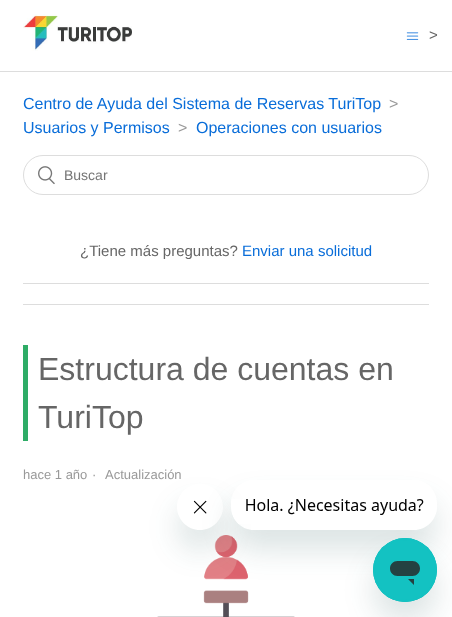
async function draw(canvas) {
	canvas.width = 452;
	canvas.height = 617;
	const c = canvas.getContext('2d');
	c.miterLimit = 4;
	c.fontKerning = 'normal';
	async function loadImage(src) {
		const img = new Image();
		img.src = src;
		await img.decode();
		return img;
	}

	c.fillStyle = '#fff';
	c.fillRect(0, 0, 452, 617);
	c.drawImage(await loadImage('img1.png'), 23, 14, 109, 37);
	c.drawImage(await loadImage('img2.png'), 406, 32, 13, 8);
	c.font = '15px Liberation Sans';
	c.fillStyle = '#666';
	c.fillText('>', 429, 40);
	c.fillStyle = '#ddd';
	c.fillRect(0, 71, 452, 1);
	c.font = '16px Liberation Sans';
	c.fillStyle = '#096dd9';
	c.fillText('Centro de Ayuda del Sistema de Reservas TuriTop', 23, 109);
	c.fillStyle = '#999';
	c.fillText('>', 389, 109);
	c.fillStyle = '#096dd9';
	c.fillText('Usuarios y Permisos', 23, 133);
	c.fillStyle = '#999';
	c.fillText('>', 178, 133);
	c.fillStyle = '#096dd9';
	c.fillText('Operaciones con usuarios', 196, 133);
	c.beginPath();
	c.roundRect(23.5, 155.5, 405, 39, 19.5);
	c.strokeStyle = '#ddd';
	c.stroke();
	c.drawImage(await loadImage('img3.png'), 38, 166, 17, 19);
	c.font = '14px Liberation Sans';
	c.fillStyle = '#757575';
	c.fillText('Buscar', 64, 180);
	c.font = '15px Liberation Sans';
	c.fillStyle = '#666';
	c.fillText('¿Tiene más preguntas?', 80, 256);
	c.fillStyle = '#096dd9';
	c.fillText('Enviar una solicitud', 242, 256);
	for (const [x, y, w, h, color] of [
		[23, 283, 406, 1, '#ddd'],
		[23, 304, 406, 1, '#ddd'],
		[23, 345, 5, 96, '#2eac66'],
	]) {
		c.fillStyle = color;
		c.fillRect(x, y, w, h);
	}
	c.font = '32px Liberation Sans';
	c.fillStyle = '#666';
	c.fillText('Estructura de cuentas en', 38, 380);
	c.fillText('TuriTop', 38, 428);
	c.font = '13px Liberation Sans';
	c.fillStyle = '#999';
	for (const [text, x, y] of [
		['hace 1 año', 23, 479],
		['·', 92, 479],
		['Actualización', 105, 479],
	]) {
		c.fillText(text, x, y);
	}
	c.drawImage(await loadImage('img4.png'), 157, 535, 138, 82);
	c.save();
	c.beginPath();
	c.moveTo(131, 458);
	c.lineTo(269, 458);
	c.lineTo(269, 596);
	c.lineTo(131, 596);
	c.closePath();
	c.moveTo(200, 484);
	c.bezierCurveTo(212.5, 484, 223, 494.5, 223, 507);
	c.bezierCurveTo(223, 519.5, 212.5, 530, 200, 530);
	c.bezierCurveTo(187.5, 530, 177, 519.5, 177, 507);
	c.bezierCurveTo(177, 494.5, 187.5, 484, 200, 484);
	c.closePath();
	c.clip('evenodd');
	c.fillStyle = '#17494d26';
	c.filter = 'blur(15px)';
	c.beginPath();
	c.roundRect(177, 504, 46, 46, 23);
	c.fill();
	c.filter = 'none';
	c.restore();
	c.drawImage(await loadImage('img6.png'), 193, 500, 14, 14);
	c.save();
	c.beginPath();
	c.moveTo(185, 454);
	c.lineTo(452, 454);
	c.lineTo(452, 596);
	c.lineTo(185, 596);
	c.closePath();
	c.moveTo(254, 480);
	c.lineTo(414, 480);
	c.bezierCurveTo(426.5, 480, 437, 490.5, 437, 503);
	c.lineTo(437, 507);
	c.bezierCurveTo(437, 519.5, 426.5, 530, 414, 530);
	c.lineTo(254, 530);
	c.bezierCurveTo(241.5, 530, 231, 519.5, 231, 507);
	c.lineTo(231, 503);
	c.bezierCurveTo(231, 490.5, 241.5, 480, 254, 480);
	c.closePath();
	c.clip('evenodd');
	c.fillStyle = '#17494d26';
	c.filter = 'blur(15px)';
	c.beginPath();
	c.roundRect(231, 500, 206, 50, 23);
	c.fill();
	c.filter = 'none';
	c.restore();
	c.drawImage(await loadImage('img5.png'), 231, 499, 193, 25);
	c.fillStyle = '#17494d26';
	c.filter = 'blur(15px)';
	c.beginPath();
	c.roundRect(373, 558, 64, 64, 32);
	c.fill();
	c.filter = 'none';
	c.drawImage(await loadImage('img7.png'), 373, 538, 64, 64);
}

draw(document.querySelector('canvas'));
